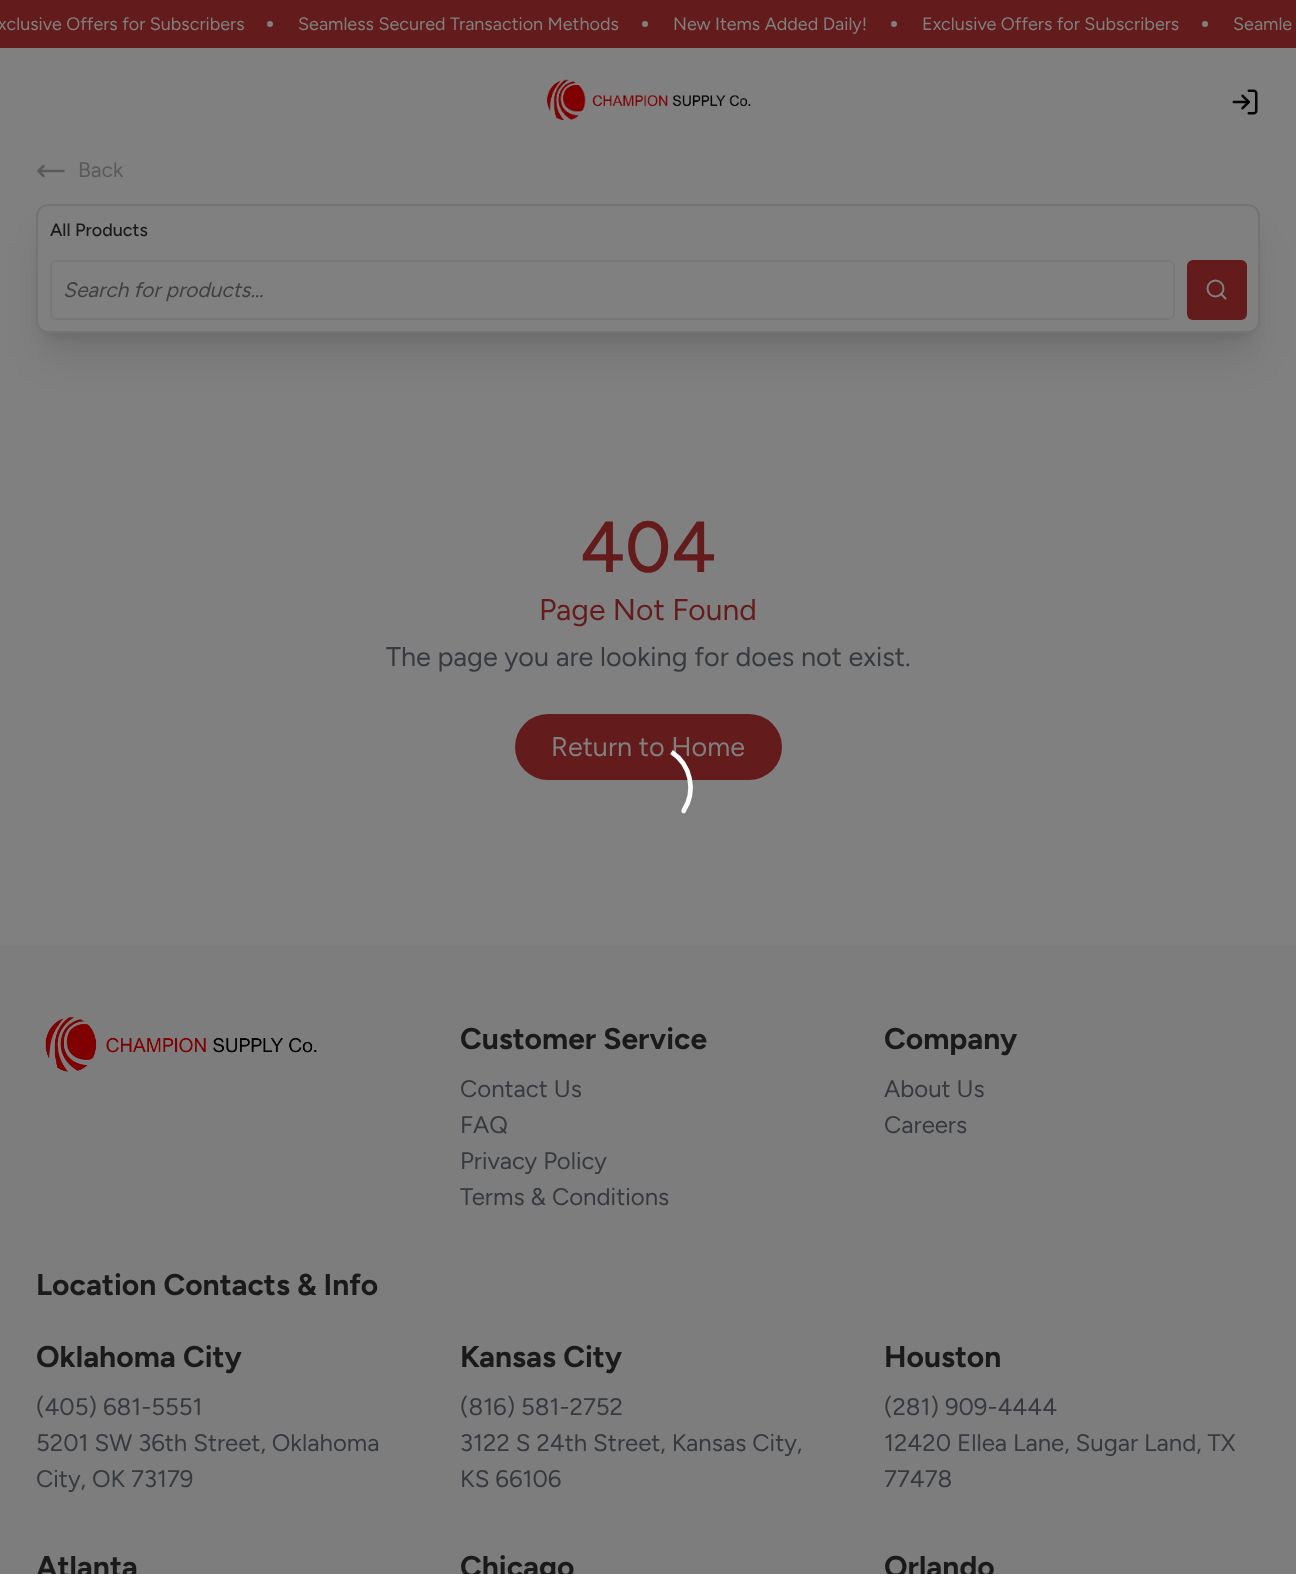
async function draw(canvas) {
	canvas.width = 1296;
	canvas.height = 1574;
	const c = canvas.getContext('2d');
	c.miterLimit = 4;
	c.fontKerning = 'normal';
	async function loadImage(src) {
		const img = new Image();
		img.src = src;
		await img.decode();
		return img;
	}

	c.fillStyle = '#808080';
	c.fillRect(0, 0, 1296, 1574);
	c.fillStyle = '#641b1b';
	c.fillRect(0, 0, 1296, 48);
	c.font = '18px Figtree';
	c.fillStyle = '#808080';
	c.fillText('xclusive Offers for Subscribers', -2, 30);
	c.beginPath();
	c.arc(270, 24, 3, 0, 2 * Math.PI);
	c.fill();
	c.fillText('Seamless Secured Transaction Methods', 298, 30);
	c.beginPath();
	c.arc(645, 24, 3, 0, 2 * Math.PI);
	c.fill();
	c.fillText('New Items Added Daily!', 673, 30);
	c.beginPath();
	c.arc(894, 24, 3, 0, 2 * Math.PI);
	c.fill();
	c.fillText('Exclusive Offers for Subscribers', 922, 30);
	c.beginPath();
	c.arc(1205, 24, 3, 0, 2 * Math.PI);
	c.fill();
	c.fillText('Seamle', 1233, 30);
	c.drawImage(await loadImage('img1.png'), 547, 79, 204, 42);
	c.drawImage(await loadImage('img2.png'), 1232, 89, 26, 26);
	c.beginPath();
	c.moveTo(43.5, 166);
	c.lineTo(38.5, 171);
	c.lineTo(43.5, 176);
	c.moveTo(38.5, 171);
	c.lineTo(63.5, 171);
	c.strokeStyle = '#5a5a5a';
	c.lineWidth = 2.5;
	c.lineCap = 'round';
	c.lineJoin = 'round';
	c.stroke();
	c.font = '21px Figtree';
	c.fillStyle = '#5a5a5a';
	c.fillText('Back', 78, 177);
	c.fillStyle = '#0000001a';
	c.filter = 'blur(7.5px)';
	c.beginPath();
	c.roundRect(45, 225, 1206, 111, 3);
	c.fill();
	c.filter = 'none';
	c.filter = 'blur(19px)';
	c.beginPath();
	c.roundRect(44, 242, 1209, 114, 5);
	c.fill();
	c.filter = 'none';
	c.fillStyle = '#808080';
	c.beginPath();
	c.roundRect(37, 205, 1222, 127, 11);
	c.fill();
	c.strokeStyle = '#737476';
	c.lineWidth = 2;
	c.lineJoin = 'miter';
	c.stroke();
	c.font = '500 18px Figtree';
	c.fillStyle = '#1a1a1a';
	c.fillText('All Products', 50, 236);
	c.beginPath();
	c.roundRect(51, 261, 1123, 58, 5);
	c.strokeStyle = '#787878';
	c.stroke();
	c.font = 'italic 21px Figtree';
	c.fillStyle = '#404040';
	c.fillText('Search for products...', 63, 297);
	c.fillStyle = '#641b1b';
	c.beginPath();
	c.roundRect(1187, 260, 60, 60, 6);
	c.fill();
	c.beginPath();
	c.arc(1215.5, 288.5, 8, 0, 2 * Math.PI);
	c.strokeStyle = '#808080';
	c.stroke();
	c.beginPath();
	c.moveTo(1225.5, 298.5);
	c.lineTo(1221, 294);
	c.lineJoin = 'round';
	c.stroke();
	c.font = '500 72px Figtree';
	c.fillText('404', 580, 572);
	c.font = '30px Figtree';
	c.fillText('Page Not Found', 539, 620);
	c.font = '27px Figtree';
	c.fillStyle = '#363a3f';
	c.fillText('The page you are looking for does not exist.', 386, 666);
	c.fillStyle = '#641b1b';
	c.beginPath();
	c.roundRect(515, 714, 267, 66, 33);
	c.fill();
	c.fillStyle = '#808080';
	c.fillText('Return to Home', 551, 756);
	c.beginPath();
	c.moveTo(683.5, 811);
	c.bezierCurveTo(696.5, 791, 691, 765, 671.5, 752);
	c.strokeStyle = '#fff';
	c.lineWidth = 4.7;
	c.lineCap = 'butt';
	c.lineJoin = 'miter';
	c.stroke();
	c.fillStyle = '#fff';
	c.beginPath();
	c.moveTo(685, 809);
	c.bezierCurveTo(687.5, 810.5, 685, 814.5, 682.5, 813);
	c.bezierCurveTo(680, 811, 682.5, 807.5, 685, 809);
	c.closePath();
	c.fill('evenodd');
	c.fillStyle = '#7d7d7e';
	c.fillRect(0, 945, 1296, 629);
	c.drawImage(await loadImage('img3.png'), 45, 1017, 272, 55);
	c.font = 'bold 30px Figtree';
	c.fillStyle = '#1a1a1a';
	c.fillText('Customer Service', 460, 1049);
	c.font = '24px Figtree';
	c.fillStyle = '#363a3f';
	for (const [text, x, y] of [
		['Contact Us', 460, 1097],
		['FAQ', 460, 1133],
		['Privacy Policy', 460, 1169],
		['Terms & Conditions', 460, 1205],
	]) {
		c.fillText(text, x, y);
	}
	c.font = 'bold 30px Figtree';
	c.fillStyle = '#1a1a1a';
	c.fillText('Company', 884, 1049);
	c.font = '24px Figtree';
	c.fillStyle = '#363a3f';
	c.fillText('About Us', 884, 1097);
	c.fillText('Careers', 884, 1133);
	c.font = 'bold 30px Figtree';
	c.fillStyle = '#1a1a1a';
	c.fillText('Location Contacts & Info', 36, 1295);
	c.fillText('Oklahoma City', 36, 1367);
	c.font = '24px Figtree';
	c.fillStyle = '#363a3f';
	for (const [text, x, y] of [
		['(405) 681-5551', 36, 1415],
		['5201 SW 36th Street, Oklahoma', 36, 1451],
		['City, OK 73179', 36, 1487],
	]) {
		c.fillText(text, x, y);
	}
	c.font = 'bold 30px Figtree';
	c.fillStyle = '#1a1a1a';
	c.fillText('Kansas City', 460, 1367);
	c.font = '24px Figtree';
	c.fillStyle = '#363a3f';
	for (const [text, x, y] of [
		['(816) 581-2752', 460, 1415],
		['3122 S 24th Street, Kansas City,', 460, 1451],
		['KS 66106', 460, 1487],
	]) {
		c.fillText(text, x, y);
	}
	c.font = 'bold 30px Figtree';
	c.fillStyle = '#1a1a1a';
	c.fillText('Houston', 884, 1367);
	c.font = '24px Figtree';
	c.fillStyle = '#363a3f';
	for (const [text, x, y] of [
		['(281) 909-4444', 884, 1415],
		['12420 Ellea Lane, Sugar Land, TX', 884, 1451],
		['77478', 884, 1487],
	]) {
		c.fillText(text, x, y);
	}
	c.font = 'bold 30px Figtree';
	c.fillStyle = '#1a1a1a';
	for (const [text, x, y] of [
		['Atlanta', 36, 1577],
		['Chicago', 460, 1577],
		['Orlando', 884, 1577],
	]) {
		c.fillText(text, x, y);
	}
}

draw(document.querySelector('canvas'));
